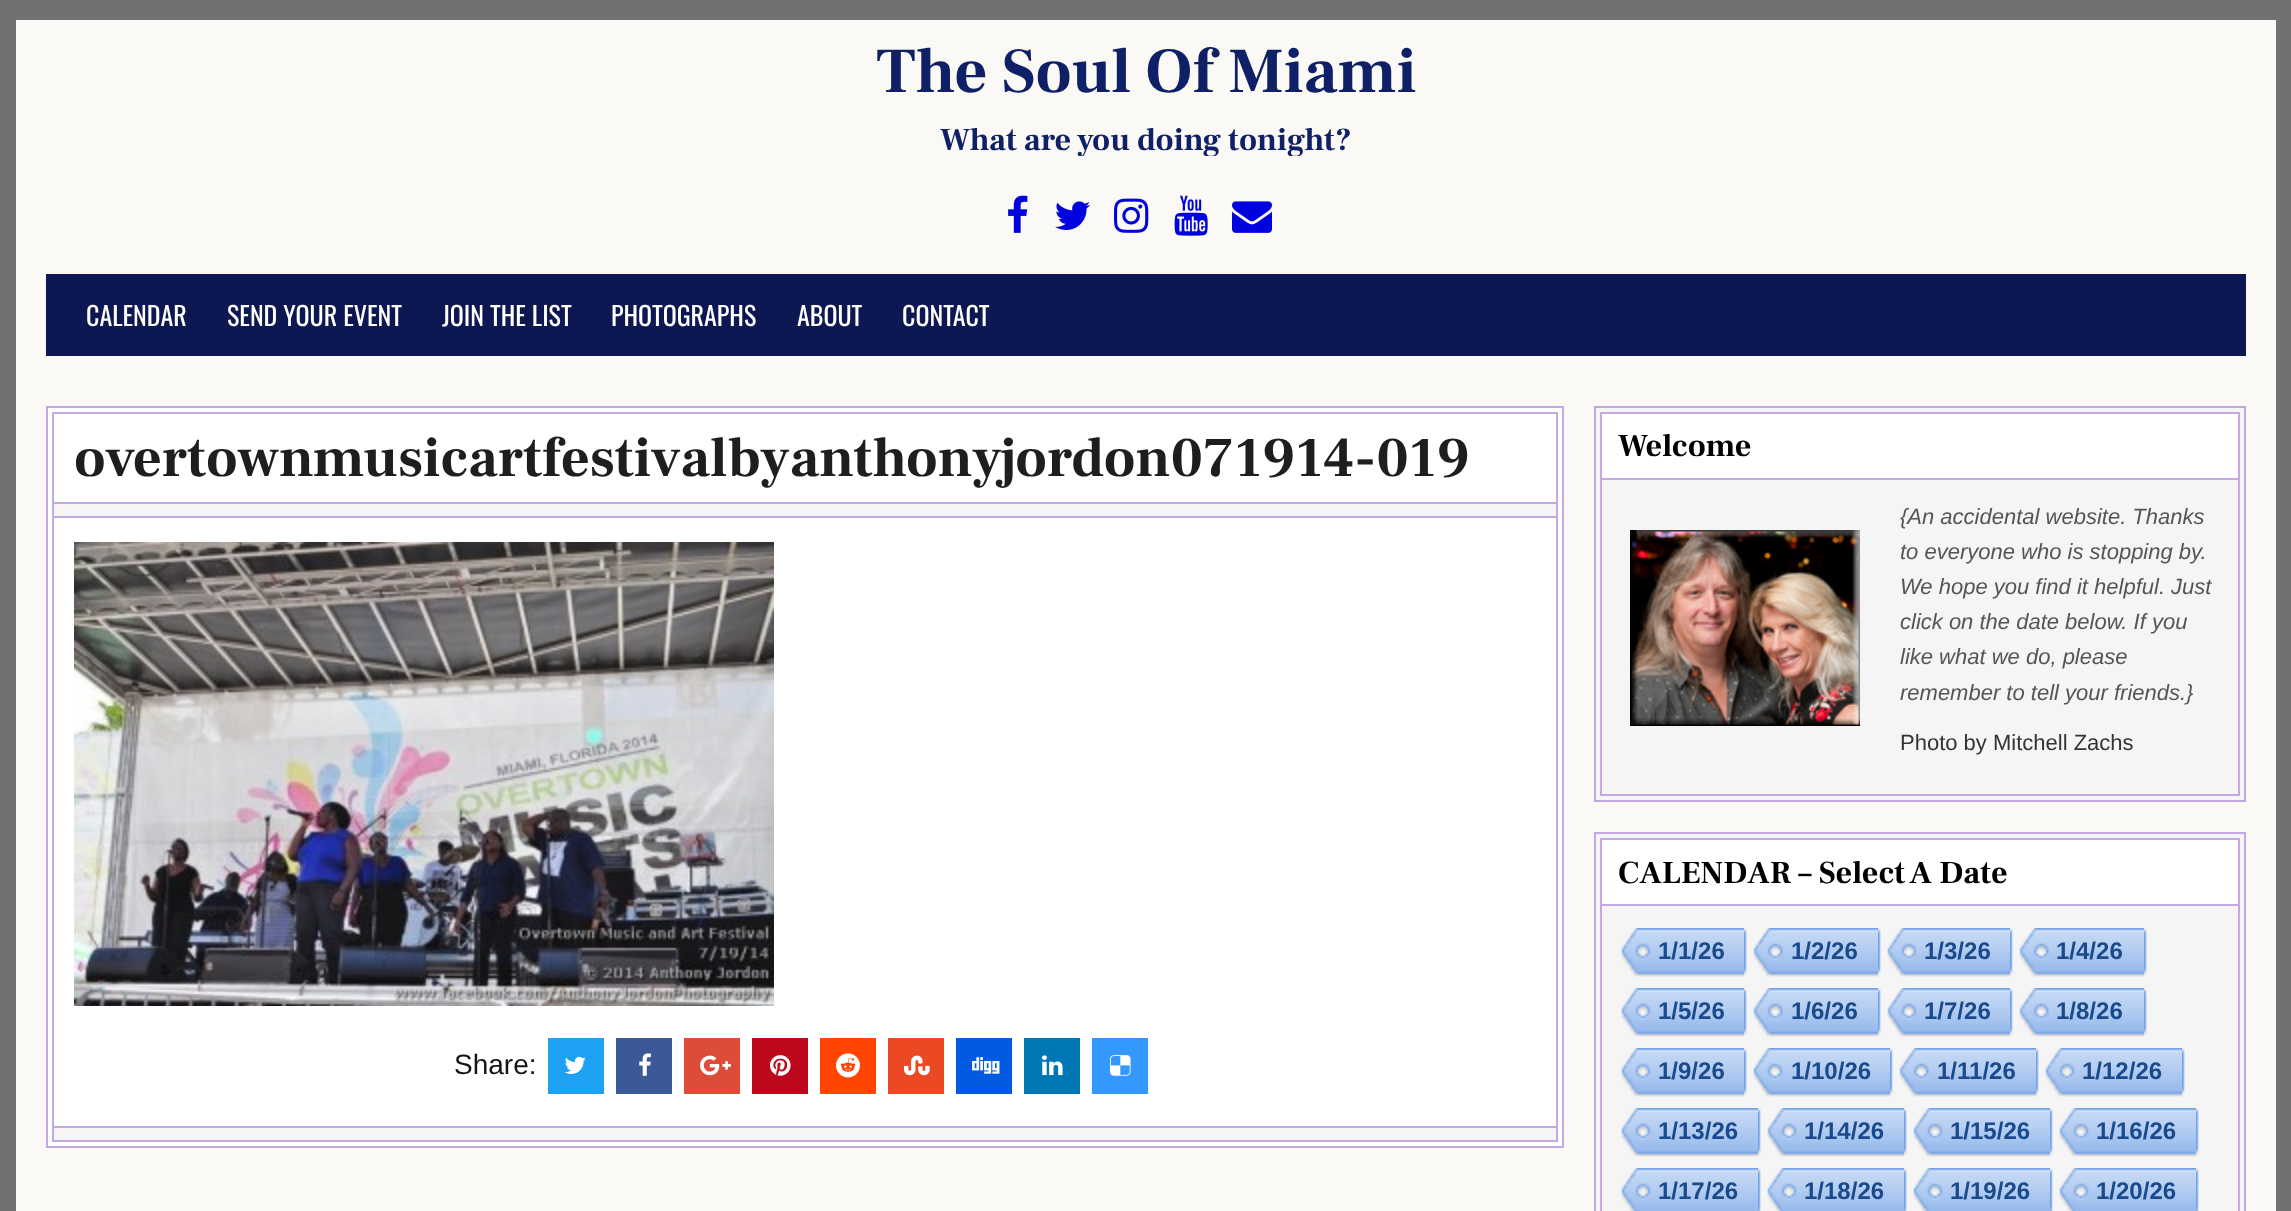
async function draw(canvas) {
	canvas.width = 2291;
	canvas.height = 1211;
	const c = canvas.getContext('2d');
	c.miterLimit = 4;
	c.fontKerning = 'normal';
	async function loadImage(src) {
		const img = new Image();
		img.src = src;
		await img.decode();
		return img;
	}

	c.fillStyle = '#717171';
	c.fillRect(0, 0, 2291, 1211);
	c.fillStyle = '#faf9f5';
	c.fillRect(16, 20, 2260, 1191);
	c.font = 'bold 64px Frank Ruhl Libre';
	c.fillStyle = '#102066';
	c.fillText('The Soul Of Miami', 876, 92);
	c.save();
	c.beginPath();
	c.rect(46, 40, 2200, 116);
	c.clip();
	c.font = 'bold 32px Frank Ruhl Libre';
	c.fillText('What are you doing tonight?', 940, 150);
	c.restore();
	c.drawImage(await loadImage('img1.png'), 1008, 195, 20, 38);
	c.drawImage(await loadImage('img2.png'), 1055, 201, 35, 29);
	c.drawImage(await loadImage('img3.png'), 1114, 198, 35, 35);
	c.drawImage(await loadImage('img4.png'), 1174, 195, 34, 41);
	c.drawImage(await loadImage('img5.png'), 1232, 201, 40, 32);
	c.fillStyle = '#0d1751';
	c.fillRect(46, 274, 2200, 82);
	c.font = '26px Oswald';
	c.fillStyle = '#fff';
	for (const [text, x, y] of [
		['CALENDAR', 86, 326],
		['SEND YOUR EVENT', 227, 326],
		['JOIN THE LIST', 442, 326],
		['PHOTOGRAPHS', 611, 326],
		['ABOUT', 797, 326],
		['CONTACT', 902, 326],
	]) {
		c.fillText(text, x, y);
	}
	c.beginPath();
	c.rect(47, 407, 1516, 740);
	c.fill();
	c.strokeStyle = '#c5a7e2';
	c.lineWidth = 2;
	c.stroke();
	c.strokeRect(53, 413, 1504, 728);
	c.fillStyle = '#c5a7e2';
	c.fillRect(54, 502, 1502, 2);
	c.font = 'bold 56px Frank Ruhl Libre';
	c.fillStyle = '#1e1e1e';
	c.fillText('overtownmusicartfestivalbyanthonyjordon071914-019', 74, 476);
	c.fillStyle = '#f5f5f5';
	c.fillRect(54, 504, 1502, 12);
	c.fillStyle = '#c5a7e2';
	c.fillRect(54, 516, 1502, 2);
	c.drawImage(await loadImage('img6.png'), 74, 542, 700, 464);
	c.font = '28px Liberation Sans';
	c.fillStyle = '#161514';
	c.fillText('Share:', 454, 1074);
	c.fillStyle = '#1da1f2';
	c.fillRect(548, 1038, 56, 56);
	c.drawImage(await loadImage('img7.png'), 564, 1056, 22, 18);
	c.fillStyle = '#3b5998';
	c.fillRect(616, 1038, 56, 56);
	c.drawImage(await loadImage('img8.png'), 639, 1053, 12, 23);
	c.fillStyle = '#dd4b39';
	c.fillRect(684, 1038, 56, 56);
	c.drawImage(await loadImage('img9.png'), 700, 1055, 31, 21);
	c.fillStyle = '#bd081c';
	c.fillRect(752, 1038, 56, 56);
	c.drawImage(await loadImage('img10.png'), 770, 1055, 21, 21);
	c.fillStyle = '#ff4500';
	c.fillRect(820, 1038, 56, 56);
	c.drawImage(await loadImage('img11.png'), 836, 1053, 24, 25);
	c.fillStyle = '#eb4924';
	c.fillRect(888, 1038, 56, 56);
	c.drawImage(await loadImage('img12.png'), 904, 1055, 26, 21);
	c.fillStyle = '#005be2';
	c.fillRect(956, 1038, 56, 56);
	c.drawImage(await loadImage('img13.png'), 972, 1057, 28, 17);
	c.fillStyle = '#0077b5';
	c.fillRect(1024, 1038, 56, 56);
	c.drawImage(await loadImage('img14.png'), 1042, 1055, 21, 21);
	c.fillStyle = '#39f';
	c.fillRect(1092, 1038, 56, 56);
	c.drawImage(await loadImage('img15.png'), 1110, 1055, 21, 21);
	c.fillStyle = '#f5f5f5';
	c.fillRect(54, 1128, 1502, 12);
	c.fillStyle = '#c5a7e2';
	c.fillRect(54, 1126, 1502, 2);
	c.fillStyle = '#f5f5f5';
	c.beginPath();
	c.rect(1595, 407, 650, 394);
	c.fill();
	c.stroke();
	c.strokeRect(1601, 413, 638, 382);
	c.fillStyle = '#fff';
	c.fillRect(1602, 414, 636, 64);
	c.fillStyle = '#c5a7e2';
	c.fillRect(1602, 478, 636, 2);
	c.font = 'bold 32px Frank Ruhl Libre';
	c.fillStyle = '#000';
	c.fillText('Welcome', 1618, 456);
	c.drawImage(await loadImage('img16.png'), 1630, 530, 230, 196);
	c.font = 'italic 22px Liberation Sans';
	c.fillStyle = '#555';
	for (const [text, x, y] of [
		['{An accidental website. Thanks', 1900, 524],
		['to everyone who is stopping by.', 1900, 559],
		['We hope you find it helpful. Just', 1900, 594],
		['click on the date below. If you', 1900, 629],
		['like what we do, please', 1900, 664],
		['remember to tell your friends.}', 1900, 700],
	]) {
		c.fillText(text, x, y);
	}
	c.font = '22px Liberation Sans';
	c.fillStyle = '#333';
	c.fillText('Photo by Mitchell Zachs', 1900, 750);
	c.fillStyle = '#f5f5f5';
	c.beginPath();
	c.rect(1595, 833, 650, 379);
	c.fill();
	c.stroke();
	c.strokeRect(1601, 839, 638, 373);
	c.fillStyle = '#fff';
	c.fillRect(1602, 840, 636, 64);
	c.fillStyle = '#c5a7e2';
	c.fillRect(1602, 904, 636, 2);
	c.font = 'bold 32px Frank Ruhl Libre';
	c.fillStyle = '#000';
	c.fillText('CALENDAR – Select A Date', 1618, 883);
	c.drawImage(await loadImage('img17.png'), 1621, 928, 123, 49);
	c.font = 'bold 24px Liberation Sans';
	c.fillStyle = '#194a8b';
	c.fillText('1/1/26', 1658, 959);
	c.drawImage(await loadImage('img18.png'), 1744, 928, 3, 48);
	c.drawImage(await loadImage('img19.png'), 1753, 928, 125, 49);
	c.fillText('1/2/26', 1791, 959);
	c.drawImage(await loadImage('img18.png'), 1878, 928, 3, 48);
	c.drawImage(await loadImage('img17.png'), 1887, 928, 123, 49);
	c.fillText('1/3/26', 1924, 959);
	c.drawImage(await loadImage('img18.png'), 2010, 928, 3, 48);
	c.drawImage(await loadImage('img19.png'), 2019, 928, 125, 49);
	c.fillText('1/4/26', 2056, 959);
	c.drawImage(await loadImage('img18.png'), 2144, 928, 3, 48);
	c.drawImage(await loadImage('img17.png'), 1621, 988, 123, 49);
	c.fillText('1/5/26', 1658, 1019);
	c.drawImage(await loadImage('img18.png'), 1744, 988, 3, 48);
	c.drawImage(await loadImage('img19.png'), 1753, 988, 125, 49);
	c.fillText('1/6/26', 1791, 1019);
	c.drawImage(await loadImage('img18.png'), 1878, 988, 3, 48);
	c.drawImage(await loadImage('img17.png'), 1887, 988, 123, 49);
	c.fillText('1/7/26', 1924, 1019);
	c.drawImage(await loadImage('img18.png'), 2010, 988, 3, 48);
	c.drawImage(await loadImage('img19.png'), 2019, 988, 125, 49);
	c.fillText('1/8/26', 2056, 1019);
	c.drawImage(await loadImage('img18.png'), 2144, 988, 3, 48);
	c.drawImage(await loadImage('img17.png'), 1621, 1048, 123, 49);
	c.fillText('1/9/26', 1658, 1079);
	c.drawImage(await loadImage('img18.png'), 1744, 1048, 3, 48);
	c.drawImage(await loadImage('img20.png'), 1753, 1048, 137, 49);
	c.fillText('1/10/26', 1791, 1079);
	c.drawImage(await loadImage('img18.png'), 1890, 1048, 3, 48);
	c.drawImage(await loadImage('img21.png'), 1899, 1048, 137, 49);
	c.fillText('1/11/26', 1937, 1079);
	c.drawImage(await loadImage('img18.png'), 2036, 1048, 3, 48);
	c.drawImage(await loadImage('img20.png'), 2045, 1048, 137, 49);
	c.fillText('1/12/26', 2082, 1079);
	c.drawImage(await loadImage('img18.png'), 2182, 1048, 3, 48);
	c.drawImage(await loadImage('img20.png'), 1621, 1108, 137, 49);
	c.fillText('1/13/26', 1658, 1139);
	c.drawImage(await loadImage('img18.png'), 1758, 1108, 3, 48);
	c.drawImage(await loadImage('img20.png'), 1767, 1108, 137, 49);
	c.fillText('1/14/26', 1804, 1139);
	c.drawImage(await loadImage('img18.png'), 1904, 1108, 3, 48);
	c.drawImage(await loadImage('img20.png'), 1913, 1108, 137, 49);
	c.fillText('1/15/26', 1950, 1139);
	c.drawImage(await loadImage('img18.png'), 2050, 1108, 3, 48);
	c.drawImage(await loadImage('img20.png'), 2059, 1108, 137, 49);
	c.fillText('1/16/26', 2096, 1139);
	c.drawImage(await loadImage('img18.png'), 2196, 1108, 3, 48);
	c.drawImage(await loadImage('img22.png'), 1621, 1168, 137, 43);
	c.fillText('1/17/26', 1658, 1199);
	c.drawImage(await loadImage('img23.png'), 1758, 1168, 3, 43);
	c.drawImage(await loadImage('img22.png'), 1767, 1168, 137, 43);
	c.fillText('1/18/26', 1804, 1199);
	c.drawImage(await loadImage('img23.png'), 1904, 1168, 3, 43);
	c.drawImage(await loadImage('img22.png'), 1913, 1168, 137, 43);
	c.fillText('1/19/26', 1950, 1199);
	c.drawImage(await loadImage('img23.png'), 2050, 1168, 3, 43);
	c.drawImage(await loadImage('img22.png'), 2059, 1168, 137, 43);
	c.fillText('1/20/26', 2096, 1199);
	c.drawImage(await loadImage('img23.png'), 2196, 1168, 3, 43);
}

draw(document.querySelector('canvas'));
